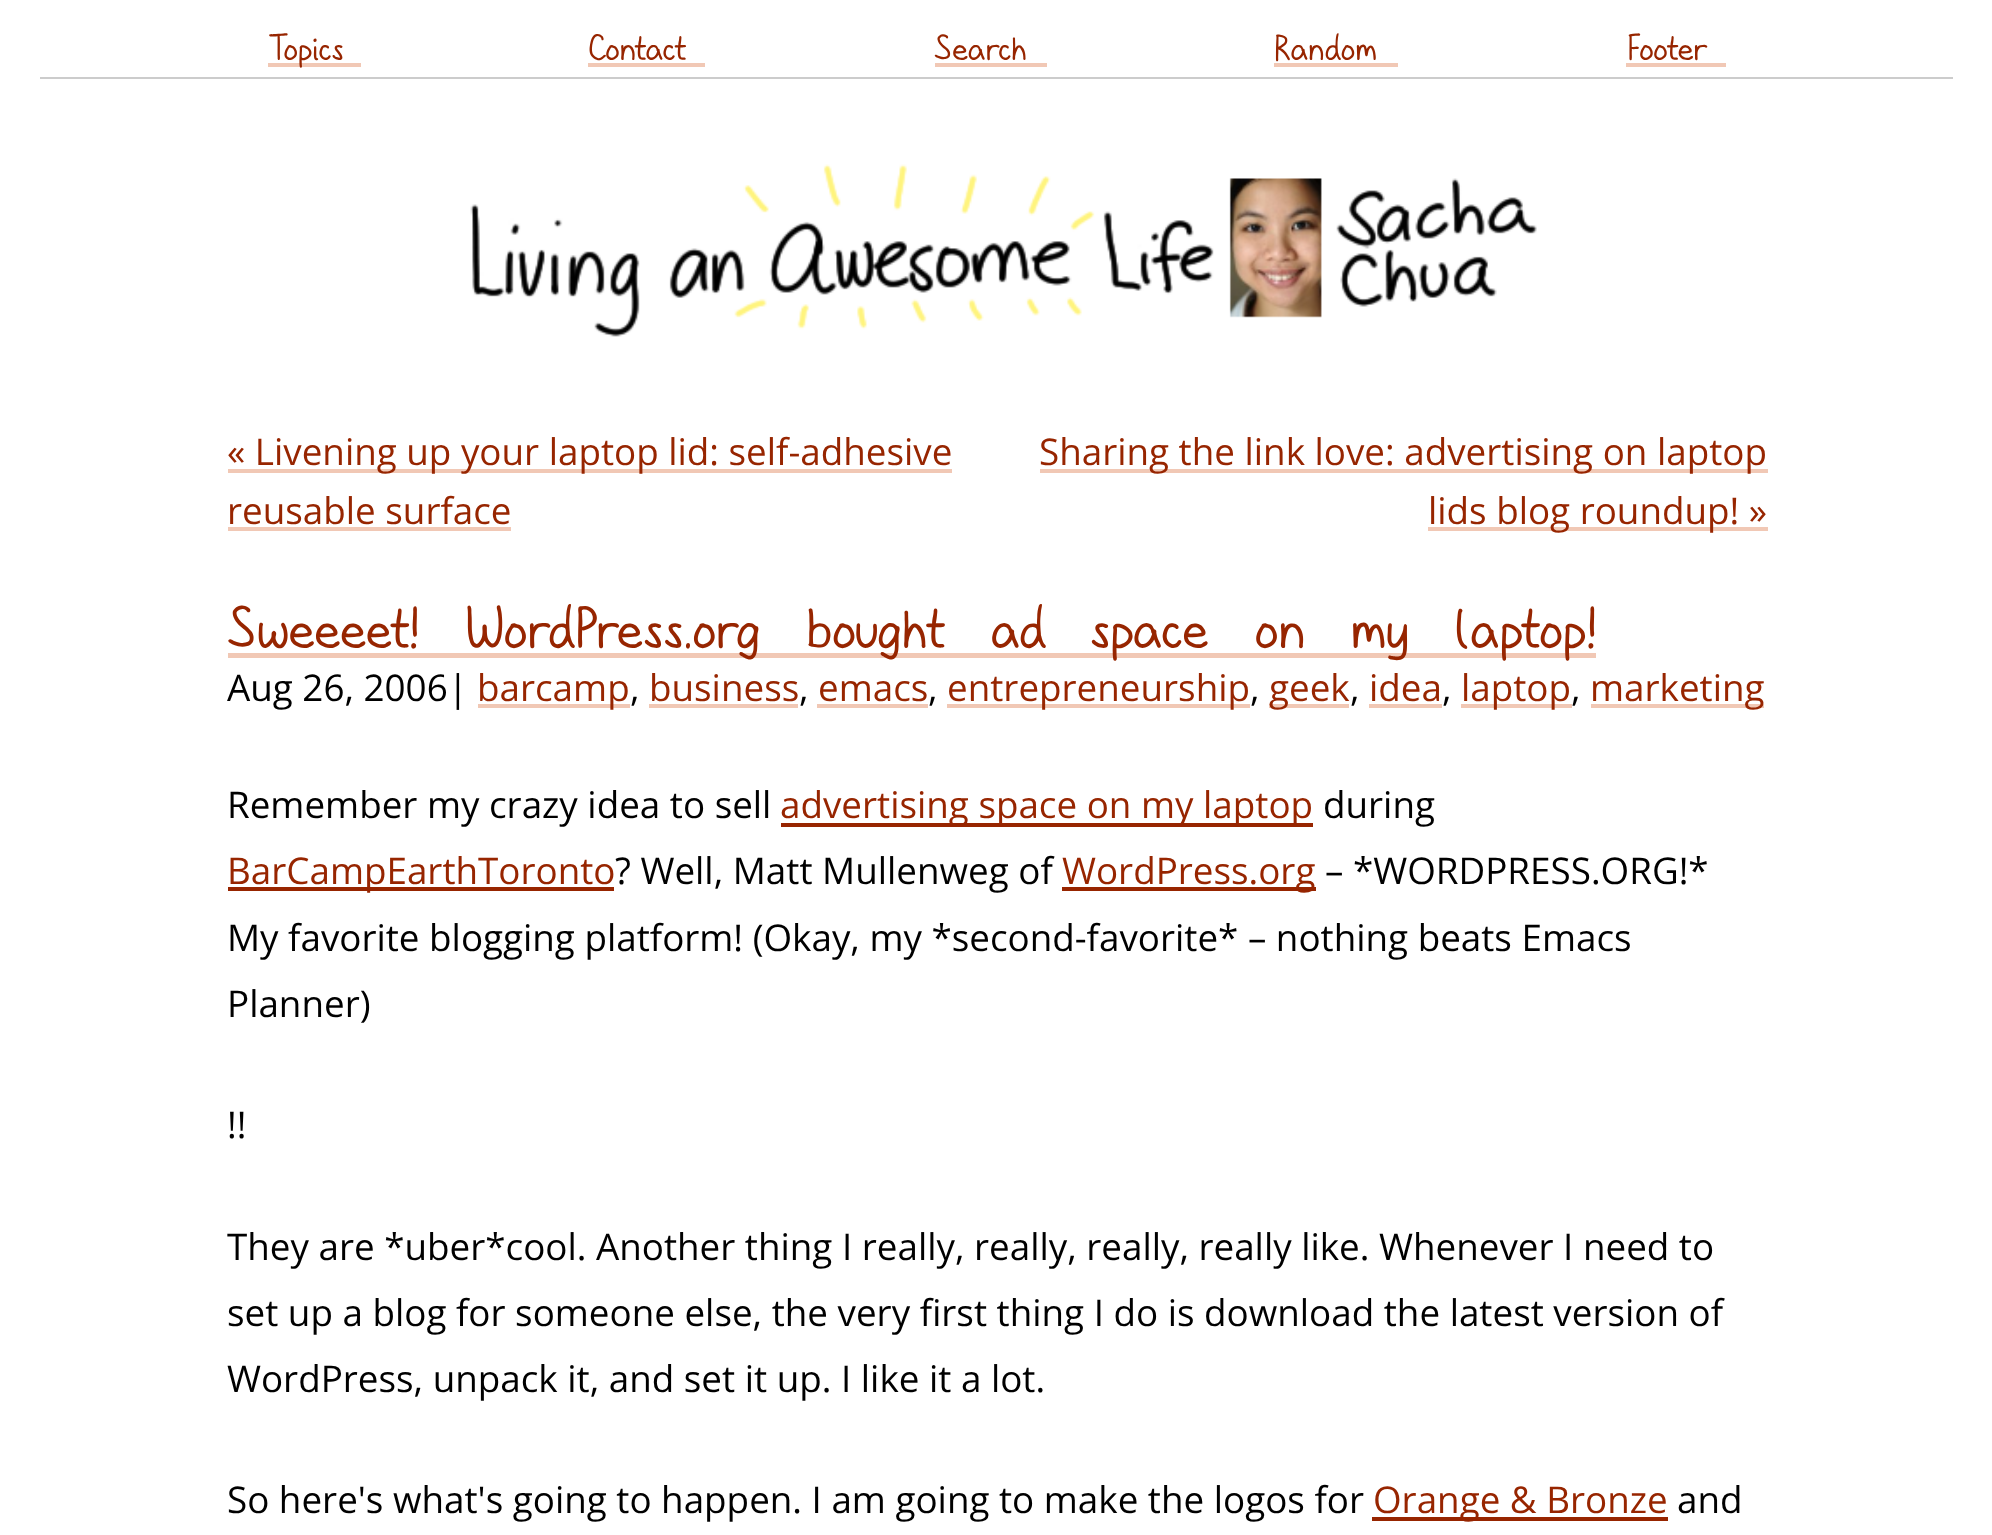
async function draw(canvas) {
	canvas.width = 1992;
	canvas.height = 1535;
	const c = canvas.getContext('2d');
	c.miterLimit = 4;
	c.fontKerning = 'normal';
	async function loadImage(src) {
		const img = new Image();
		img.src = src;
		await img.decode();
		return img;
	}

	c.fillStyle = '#fff';
	c.fillRect(0, 0, 1992, 1535);
	c.fillStyle = '#ccc';
	c.fillRect(40, 77, 1913, 2);
	c.fillStyle = '#f1c8b5';
	c.fillRect(268, 63, 93, 4);
	c.font = '39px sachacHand';
	c.fillStyle = '#972500';
	c.fillText('Topics', 268, 60);
	c.fillText('Contact', 588, 60);
	c.fillStyle = '#f1c8b5';
	c.fillRect(588, 63, 117, 4);
	c.fillStyle = '#972500';
	c.fillText('Search', 934, 60);
	c.fillStyle = '#f1c8b5';
	c.fillRect(935, 63, 112, 4);
	c.fillStyle = '#972500';
	c.fillText('Random', 1274, 60);
	c.fillStyle = '#f1c8b5';
	c.fillRect(1274, 63, 124, 4);
	c.fillStyle = '#972500';
	c.fillText('Footer', 1626, 60);
	c.fillStyle = '#f1c8b5';
	c.fillRect(1626, 63, 100, 4);
	c.drawImage(await loadImage('img1.png'), 470, 164, 1067, 173);
	c.fillRect(228, 469, 724, 4);
	c.font = '36.8px Open Sans';
	c.fillStyle = '#972500';
	c.fillText('« Livening up your laptop lid: self-adhesive', 227, 465);
	c.fillText('reusable surface', 227, 524);
	c.fillStyle = '#f1c8b5';
	c.fillRect(228, 527, 283, 4);
	c.fillRect(1040, 469, 728, 4);
	c.fillStyle = '#972500';
	c.fillText('Sharing the link love: advertising on laptop', 1039, 465);
	c.fillStyle = '#f1c8b5';
	c.fillRect(1428, 527, 340, 4);
	c.fillStyle = '#972500';
	c.fillText('lids blog roundup! »', 1428, 524);
	c.fillStyle = '#f1c8b5';
	c.fillRect(228, 653, 1368, 5);
	c.wordSpacing = '32.5px';
	c.font = '64.4px sachacHand';
	c.fillStyle = '#972500';
	c.fillText('Sweeeet! WordPress.org bought ad space on my laptop!', 227, 648);
	c.wordSpacing = '0px';
	c.font = '36.8px Open Sans';
	c.fillStyle = '#000';
	c.fillText('Aug 26, 2006|', 227, 701);
	c.fillStyle = '#f1c8b5';
	c.fillRect(478, 704, 152, 4);
	c.fillStyle = '#972500';
	c.fillText('barcamp', 477, 701);
	c.fillStyle = '#000';
	c.fillText(',', 630, 701);
	c.fillStyle = '#972500';
	c.fillText('business', 649, 701);
	c.fillStyle = '#000';
	c.fillText(',', 799, 701);
	c.fillStyle = '#f1c8b5';
	c.fillRect(649, 704, 149, 4);
	c.fillStyle = '#972500';
	c.fillText('emacs', 818, 701);
	c.fillStyle = '#000';
	c.fillText(',', 928, 701);
	c.fillStyle = '#f1c8b5';
	c.fillRect(817, 704, 111, 4);
	c.fillRect(947, 704, 303, 4);
	c.fillStyle = '#972500';
	c.fillText('entrepreneurship', 947, 701);
	c.fillStyle = '#000';
	c.fillText(',', 1250, 701);
	c.fillStyle = '#f1c8b5';
	c.fillRect(1269, 704, 80, 4);
	c.fillStyle = '#972500';
	c.fillText('geek', 1269, 701);
	c.fillStyle = '#000';
	c.fillText(',', 1350, 701);
	c.fillStyle = '#972500';
	c.fillText('idea', 1369, 701);
	c.fillStyle = '#000';
	c.fillText(',', 1442, 701);
	c.fillStyle = '#f1c8b5';
	c.fillRect(1369, 704, 73, 4);
	c.fillRect(1461, 704, 111, 4);
	c.fillStyle = '#972500';
	c.fillText('laptop', 1461, 701);
	c.fillStyle = '#000';
	c.fillText(',', 1571, 701);
	c.fillStyle = '#f1c8b5';
	c.fillRect(1591, 704, 173, 4);
	c.fillStyle = '#972500';
	c.fillText('marketing', 1590, 701);
	c.fillStyle = '#000';
	c.fillText('Remember my crazy idea to sell', 227, 818);
	c.fillStyle = '#972500';
	c.fillRect(781, 823, 532, 4);
	c.fillText('advertising space on my laptop', 780, 818);
	c.fillStyle = '#000';
	c.fillText('during', 1323, 818);
	c.fillStyle = '#972500';
	c.fillRect(228, 887, 386, 4);
	c.fillText('BarCampEarthToronto', 227, 884);
	c.fillStyle = '#000';
	c.fillText('? Well, Matt Mullenweg of', 615, 884);
	c.fillStyle = '#972500';
	c.fillRect(1062, 887, 254, 4);
	c.fillText('WordPress.org', 1062, 884);
	c.fillStyle = '#000';
	for (const [text, x, y] of [
		['– *WORDPRESS.ORG!*', 1325, 884],
		['My favorite blogging platform! (Okay, my *second-favorite* – nothing beats Emacs', 227, 951],
		['Planner)', 227, 1017],
		['!!', 227, 1138],
		['They are *uber*cool. Another thing I really, really, really, really like. Whenever I need to', 227, 1260],
		['set up a blog for someone else, the very first thing I do is download the latest version of', 227, 1326],
		['WordPress, unpack it, and set it up. I like it a lot.', 227, 1392],
		['So here\'s what\'s going to happen. I am going to make the logos for', 227, 1513],
	]) {
		c.fillText(text, x, y);
	}
	c.fillStyle = '#972500';
	c.fillRect(1372, 1517, 296, 4);
	c.fillText('Orange & Bronze', 1373, 1513);
	c.fillStyle = '#000';
	c.fillText('and', 1677, 1513);
}

draw(document.querySelector('canvas'));
